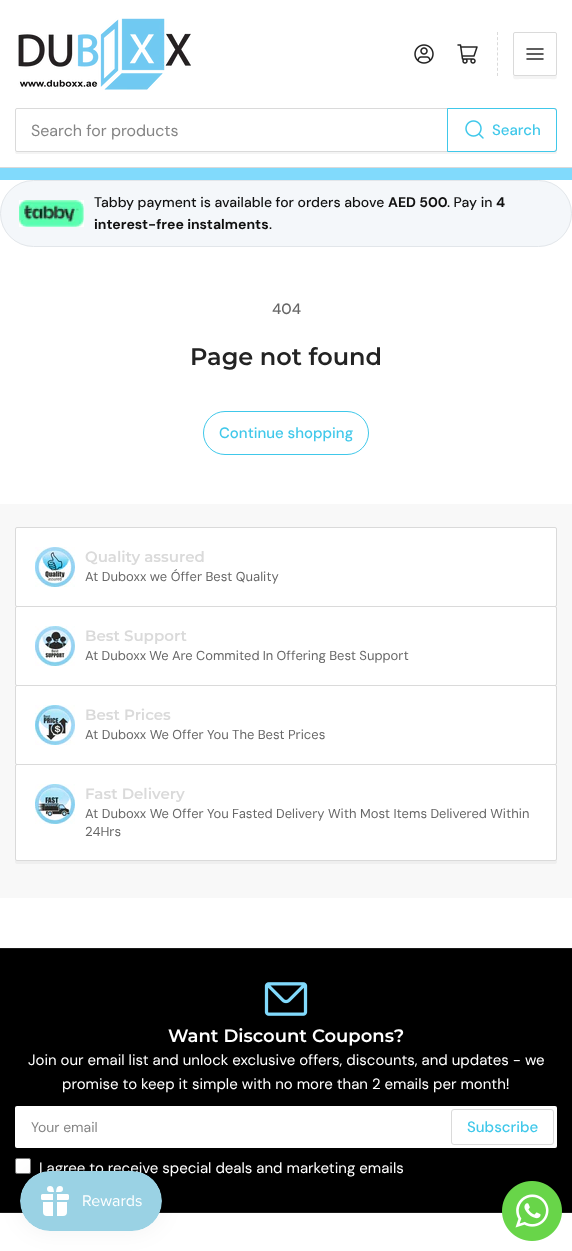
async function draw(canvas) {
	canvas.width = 572;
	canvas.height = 1251;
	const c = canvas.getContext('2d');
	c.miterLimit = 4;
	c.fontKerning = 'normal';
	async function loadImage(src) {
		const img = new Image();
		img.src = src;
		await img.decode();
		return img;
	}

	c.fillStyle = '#fff';
	c.fillRect(0, 0, 572, 1251);
	c.fillStyle = '#dadada';
	c.fillRect(0, 167, 572, 1);
	c.drawImage(await loadImage('img1.png'), 18, 18, 173, 72);
	c.drawImage(await loadImage('img2.png'), 414, 44, 20, 20);
	c.drawImage(await loadImage('img3.png'), 457, 44, 21, 20);
	c.beginPath();
	c.moveTo(497.5, 32);
	c.lineTo(497.5, 76);
	c.strokeStyle = '#dadada';
	c.setLineDash([3, 2.12]);
	c.stroke();
	c.fillStyle = '#f4f4f4';
	c.beginPath();
	c.moveTo(513, 74);
	c.bezierCurveTo(513, 81, 514, 79, 522, 79);
	c.lineTo(548, 79);
	c.bezierCurveTo(556, 79, 557, 81, 557, 74);
	c.bezierCurveTo(557, 75, 556, 76, 555, 76);
	c.lineTo(515, 76);
	c.bezierCurveTo(514, 76, 513, 75, 513, 74);
	c.closePath();
	c.fill();
	c.beginPath();
	c.roundRect(513.5, 32.5, 43, 43, 1.5);
	c.setLineDash([]);
	c.stroke();
	c.drawImage(await loadImage('img4.png'), 526, 48, 18, 12);
	c.beginPath();
	c.moveTo(15, 150);
	c.bezierCurveTo(15, 152, 15, 154, 17, 154);
	c.lineTo(555, 154);
	c.lineTo(557, 153);
	c.lineTo(557, 150);
	c.bezierCurveTo(557, 151, 556, 152, 555, 152);
	c.lineTo(17, 152);
	c.bezierCurveTo(16, 152, 15, 151, 15, 150);
	c.closePath();
	c.fill();
	c.beginPath();
	c.roundRect(15.5, 108.5, 541, 43, 1.5);
	c.stroke();
	c.font = '16px "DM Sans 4"';
	c.fillStyle = '#858585';
	c.fillText('Search for products', 31, 136);
	c.beginPath();
	c.roundRect(447.5, 108.5, 109, 43, [0, 2.5, 2.5, 0]);
	c.strokeStyle = '#40c8ea';
	c.stroke();
	c.drawImage(await loadImage('img5.png'), 465, 120, 19, 19);
	c.font = '500 15px DM Sans';
	c.fillStyle = '#40c8ea';
	c.fillText('Search', 492, 135);
	c.fillStyle = '#81dafc';
	c.fillRect(0, 168, 572, 12);
	c.fillStyle = '#f4f7fa';
	c.beginPath();
	c.roundRect(0.5, 180.5, 571, 66, 33);
	c.fill();
	c.strokeStyle = '#e2e6ea';
	c.stroke();
	c.drawImage(await loadImage('img6.png'), 19, 200, 65, 27);
	c.font = '500 14px "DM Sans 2"';
	c.fillStyle = '#111';
	c.fillText('Tabby payment is available for orders above', 94, 207);
	c.font = 'bold 14px DM Sans';
	c.fillText('AED 500', 388, 207);
	c.font = '500 14px "DM Sans 2"';
	c.fillText('. Pay in', 447, 207);
	c.font = 'bold 14px DM Sans';
	c.fillText('4', 496, 207);
	c.fillText('interest-free instalments', 94, 229);
	c.font = '500 14px "DM Sans 2"';
	c.fillText('.', 269, 229);
	c.font = '500 15px DM Sans';
	c.fillStyle = '#676767';
	c.fillText('404', 272, 314);
	c.font = '600 24px Montserrat';
	c.fillStyle = '#232323';
	c.fillText('Page not found', 190, 365);
	c.beginPath();
	c.roundRect(203.5, 411.5, 165, 43, 21.5);
	c.strokeStyle = '#40c8ea';
	c.stroke();
	c.font = '500 15px DM Sans';
	c.fillStyle = '#40c8ea';
	c.fillText('Continue shopping', 219, 438);
	c.fillStyle = '#f8f8f8';
	c.fillRect(0, 504, 572, 394);
	c.fillStyle = '#fff';
	c.beginPath();
	c.roundRect(15.5, 527.5, 541, 79, 1.5);
	c.fill();
	c.strokeStyle = '#dadada';
	c.stroke();
	c.drawImage(await loadImage('img7.png'), 35, 547, 40, 40);
	c.font = '600 15px Montserrat';
	c.fillStyle = '#dadada';
	c.fillText('Quality assured', 85, 562);
	c.font = '13px "DM Sans 2"';
	c.fillStyle = '#676767';
	c.fillText('At Duboxx we Óffer Best Quality', 85, 581);
	c.fillStyle = '#fff';
	c.beginPath();
	c.roundRect(15.5, 606.5, 541, 79, 1.5);
	c.fill();
	c.stroke();
	c.drawImage(await loadImage('img8.png'), 35, 626, 40, 40);
	c.font = '600 15px Montserrat';
	c.fillStyle = '#dadada';
	c.fillText('Best Support', 85, 641);
	c.wordSpacing = '-0.25px';
	c.font = '13px "DM Sans 2"';
	c.fillStyle = '#676767';
	c.fillText('At Duboxx We Are Commited In Offering Best Support', 85, 660);
	c.fillStyle = '#fff';
	c.beginPath();
	c.roundRect(15.5, 685.5, 541, 79, 1.5);
	c.fill();
	c.stroke();
	c.drawImage(await loadImage('img9.png'), 35, 705, 40, 40);
	c.wordSpacing = '0px';
	c.font = '600 15px Montserrat';
	c.fillStyle = '#dadada';
	c.fillText('Best Prices', 85, 720);
	c.wordSpacing = '-0.1px';
	c.font = '13px "DM Sans 2"';
	c.fillStyle = '#676767';
	c.fillText('At Duboxx We Offer You The Best Prices', 85, 739);
	c.fillStyle = '#efefef';
	c.beginPath();
	c.moveTo(15, 859);
	c.lineTo(15, 862);
	c.bezierCurveTo(15, 863, 16, 864, 17, 864);
	c.lineTo(555, 864);
	c.bezierCurveTo(556, 864, 557, 863, 557, 862);
	c.lineTo(557, 859);
	c.bezierCurveTo(557, 860, 556, 861, 555, 861);
	c.lineTo(17, 861);
	c.bezierCurveTo(16, 861, 15, 860, 15, 859);
	c.closePath();
	c.fill();
	c.fillStyle = '#fff';
	c.beginPath();
	c.roundRect(15.5, 764.5, 541, 96, 1.5);
	c.fill();
	c.stroke();
	c.drawImage(await loadImage('img10.png'), 35, 784, 40, 40);
	c.wordSpacing = '0px';
	c.font = '600 15px Montserrat';
	c.fillStyle = '#dadada';
	c.fillText('Fast Delivery', 85, 799);
	c.wordSpacing = '-0.1px';
	c.font = '13px "DM Sans 2"';
	c.fillStyle = '#676767';
	c.fillText('At Duboxx We Offer You Fasted Delivery With Most Items Delivered Within', 85, 818);
	c.wordSpacing = '0px';
	c.fillText('24Hrs', 85, 836);
	for (const [x, y, w, h, color] of [
		[0, 949, 572, 263, '#000'],
		[0, 948, 572, 1, '#1a1a1a'],
		[0, 1212, 572, 1, '#1a1a1a'],
	]) {
		c.fillStyle = color;
		c.fillRect(x, y, w, h);
	}
	c.drawImage(await loadImage('img11.png'), 264, 982, 44, 34);
	c.font = '600 18px Montserrat';
	c.fillStyle = '#fff';
	c.fillText('Want Discount Coupons?', 168, 1042);
	c.font = '15px DM Sans';
	c.fillText('Join our email list and unlock exclusive offers, discounts, and updates - we', 28, 1065);
	c.fillText('promise to keep it simple with no more than 2 emails per month!', 62, 1089);
	c.beginPath();
	c.roundRect(15, 1106, 542, 42, 2);
	c.fill();
	c.beginPath();
	c.roundRect(15.5, 1106.5, 541, 41, 1.5);
	c.strokeStyle = '#ffffff1a';
	c.stroke();
	c.font = '14px "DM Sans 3"';
	c.fillStyle = '#858585';
	c.fillText('Your email', 31, 1132);
	c.beginPath();
	c.roundRect(451.5, 1109.5, 102, 35, 2.5);
	c.strokeStyle = '#dadada';
	c.stroke();
	c.font = '500 15px DM Sans';
	c.fillStyle = '#40c8ea';
	c.fillText('Subscribe', 467, 1132);
	c.fillStyle = '#fff';
	c.beginPath();
	c.roundRect(15.5, 1158.5, 15, 15, 1.5);
	c.fill();
	c.strokeStyle = '#767676';
	c.stroke();
	c.font = '15px DM Sans';
	c.fillText('I agree to receive special deals and marketing emails', 39, 1173);
	c.fillStyle = '#0000000d';
	c.filter = 'blur(12.5px)';
	c.beginPath();
	c.roundRect(20, 1171, 142, 60, 30);
	c.fill();
	c.filter = 'none';
	c.drawImage(await loadImage('img12.png'), 20, 1171, 142, 60);
	c.drawImage(await loadImage('img13.png'), 502, 1181, 60, 60);
}

draw(document.querySelector('canvas'));
